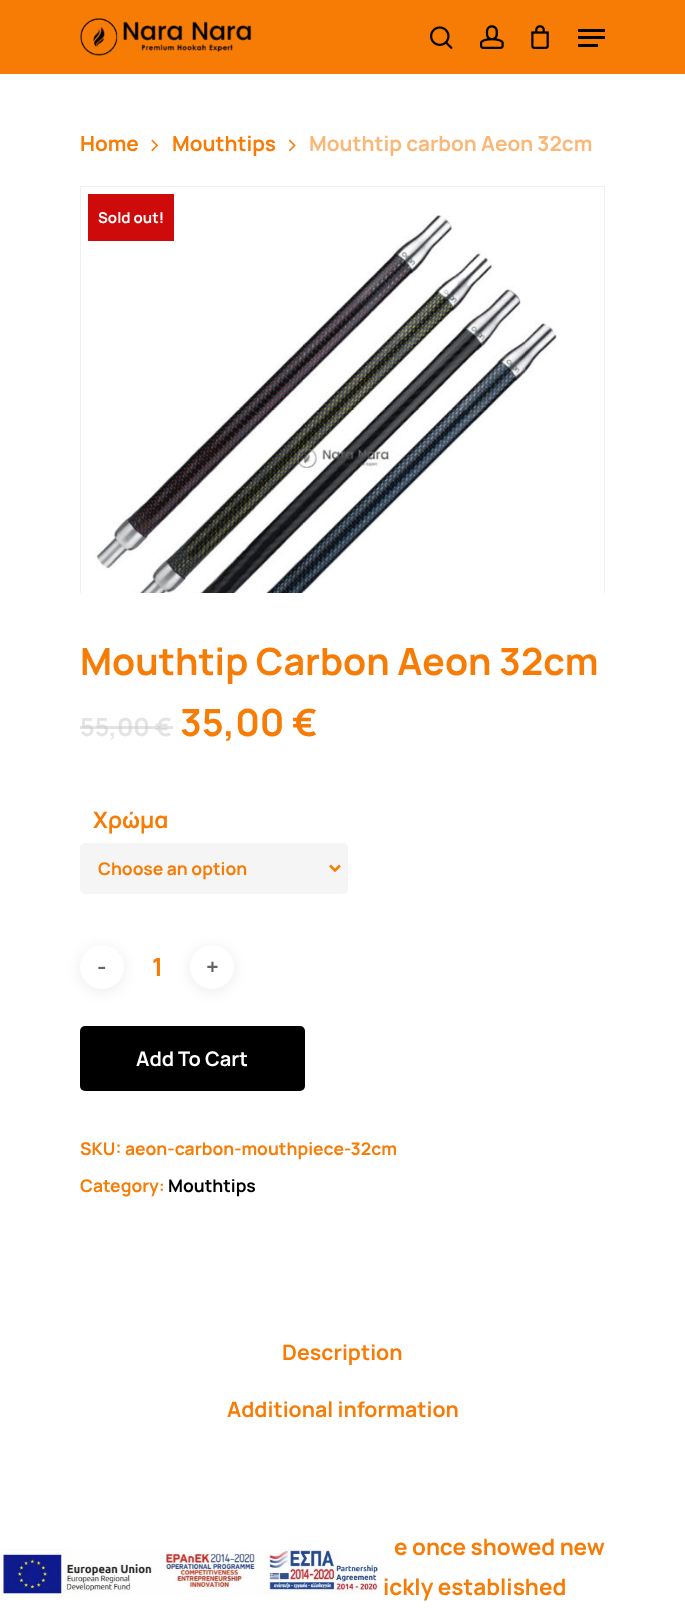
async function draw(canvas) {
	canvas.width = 685;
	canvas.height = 1610;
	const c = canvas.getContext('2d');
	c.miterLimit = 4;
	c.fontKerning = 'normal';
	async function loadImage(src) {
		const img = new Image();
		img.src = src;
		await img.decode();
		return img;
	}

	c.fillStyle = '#fff';
	c.fillRect(0, 0, 685, 1610);
	c.fillStyle = '#f77c05';
	c.fillRect(0, 0, 685, 74);
	c.drawImage(await loadImage('img1.png'), 80, 18, 172, 38);
	c.drawImage(await loadImage('img2.png'), 430, 26, 23, 23);
	c.drawImage(await loadImage('img3.png'), 480, 25, 24, 24);
	c.drawImage(await loadImage('img4.png'), 531, 25, 18, 24);
	for (const [x, y, w, h, color] of [
		[578, 29, 27, 3, '#000'],
		[578, 44, 20, 3, '#000'],
		[578, 36, 27, 3, '#000'],
	]) {
		c.fillStyle = color;
		c.fillRect(x, y, w, h);
	}
	c.font = 'bold 20.75px Manrope';
	c.fillStyle = '#f77c05';
	c.fillText('Home', 80, 151);
	c.drawImage(await loadImage('img5.png'), 151, 139, 8, 13);
	c.fillText('Mouthtips', 172, 151);
	c.drawImage(await loadImage('img6.png'), 288, 139, 8, 13);
	c.fillStyle = '#fbb776';
	c.fillText('Mouthtip carbon Aeon 32cm', 309, 151);
	c.font = 'bold 37.5px Manrope';
	c.fillStyle = '#f77c05';
	c.fillText('35,00 €', 180, 736);
	c.save();
	c.beginPath();
	c.rect(80, 186, 525, 407);
	c.clip();
	c.strokeStyle = '#f0f0f0';
	c.strokeRect(80.5, 186.5, 524, 524);
	c.restore();
	c.drawImage(await loadImage('img7.png'), 95, 215, 462, 378);
	c.fillStyle = '#ce0a0a';
	c.fillRect(88, 194, 86, 47);
	c.font = 'bold 15px Manrope';
	c.fillStyle = '#fff';
	c.fillText('Sold out!', 98, 223);
	c.font = 'bold 37.5px Manrope';
	c.fillStyle = '#f77c05';
	c.fillText('Mouthtip Carbon Aeon 32cm', 80, 675);
	c.font = 'bold 25px Manrope';
	c.fillStyle = '#e4e4e4';
	c.fillText('55,00 €', 80, 736);
	c.fillStyle = '#c8c8c880';
	c.fillRect(80, 726, 75, 3);
	c.fillRect(155, 726, 18, 3);
	c.font = 'bold 22.5px Manrope';
	c.fillStyle = '#f77c05';
	c.fillText('Χρώμα', 93, 828);
	c.fillStyle = '#f5f5f5';
	c.beginPath();
	c.roundRect(80, 843, 268, 51, 5);
	c.fill();
	c.beginPath();
	c.moveTo(330, 865.5);
	c.lineTo(335, 870.5);
	c.lineTo(340, 865.5);
	c.strokeStyle = '#f77c05';
	c.lineWidth = 2.5;
	c.stroke();
	c.font = 'bold 17.5px Manrope';
	c.fillStyle = '#f77c05';
	c.fillText('Choose an option', 98, 875);
	c.fillStyle = '#00000014';
	c.filter = 'blur(7.5px)';
	c.beginPath();
	c.roundRect(80, 948, 44, 43, 21.5);
	c.fill();
	c.filter = 'none';
	c.fillStyle = '#fff';
	c.beginPath();
	c.arc(102, 967, 22, 0, 2 * Math.PI);
	c.fill();
	c.font = 'bold 22.5px Manrope';
	c.fillStyle = '#666';
	c.fillText('-', 97, 975);
	c.font = 'bold 25px Manrope';
	c.fillStyle = '#f77c05';
	c.fillText('1', 152, 976);
	c.fillStyle = '#00000014';
	c.filter = 'blur(7.5px)';
	c.beginPath();
	c.roundRect(190, 948, 44, 43, 21.5);
	c.fill();
	c.filter = 'none';
	c.fillStyle = '#fff';
	c.beginPath();
	c.arc(212, 967, 22, 0, 2 * Math.PI);
	c.fill();
	c.font = 'bold 22.5px Manrope';
	c.fillStyle = '#666';
	c.fillText('+', 206, 975);
	c.fillStyle = '#000';
	c.beginPath();
	c.roundRect(80, 1026, 225, 65, 5);
	c.fill();
	c.font = 'bold 20px Manrope';
	c.fillStyle = '#fff';
	c.fillText('Add To Cart', 136, 1066);
	c.font = 'bold 17.5px Manrope';
	c.fillStyle = '#f77c05';
	c.fillText('SKU: aeon-carbon-mouthpiece-32cm', 80, 1155);
	c.fillText('Category:', 80, 1192);
	c.fillStyle = '#000';
	c.fillText('Mouthtips', 168, 1192);
	c.font = 'bold 21.25px Manrope';
	c.fillStyle = '#f77c05';
	c.fillText('Description', 282, 1360);
	c.fillText('Additional information', 227, 1417);
	c.font = 'bold 22.5px Manrope';
	c.fillText('e once showed new', 394, 1555);
	c.fillText('ickly established', 383, 1595);
	c.drawImage(await loadImage('img8.png'), 0, 1549, 384, 50);
}

draw(document.querySelector('canvas'));
